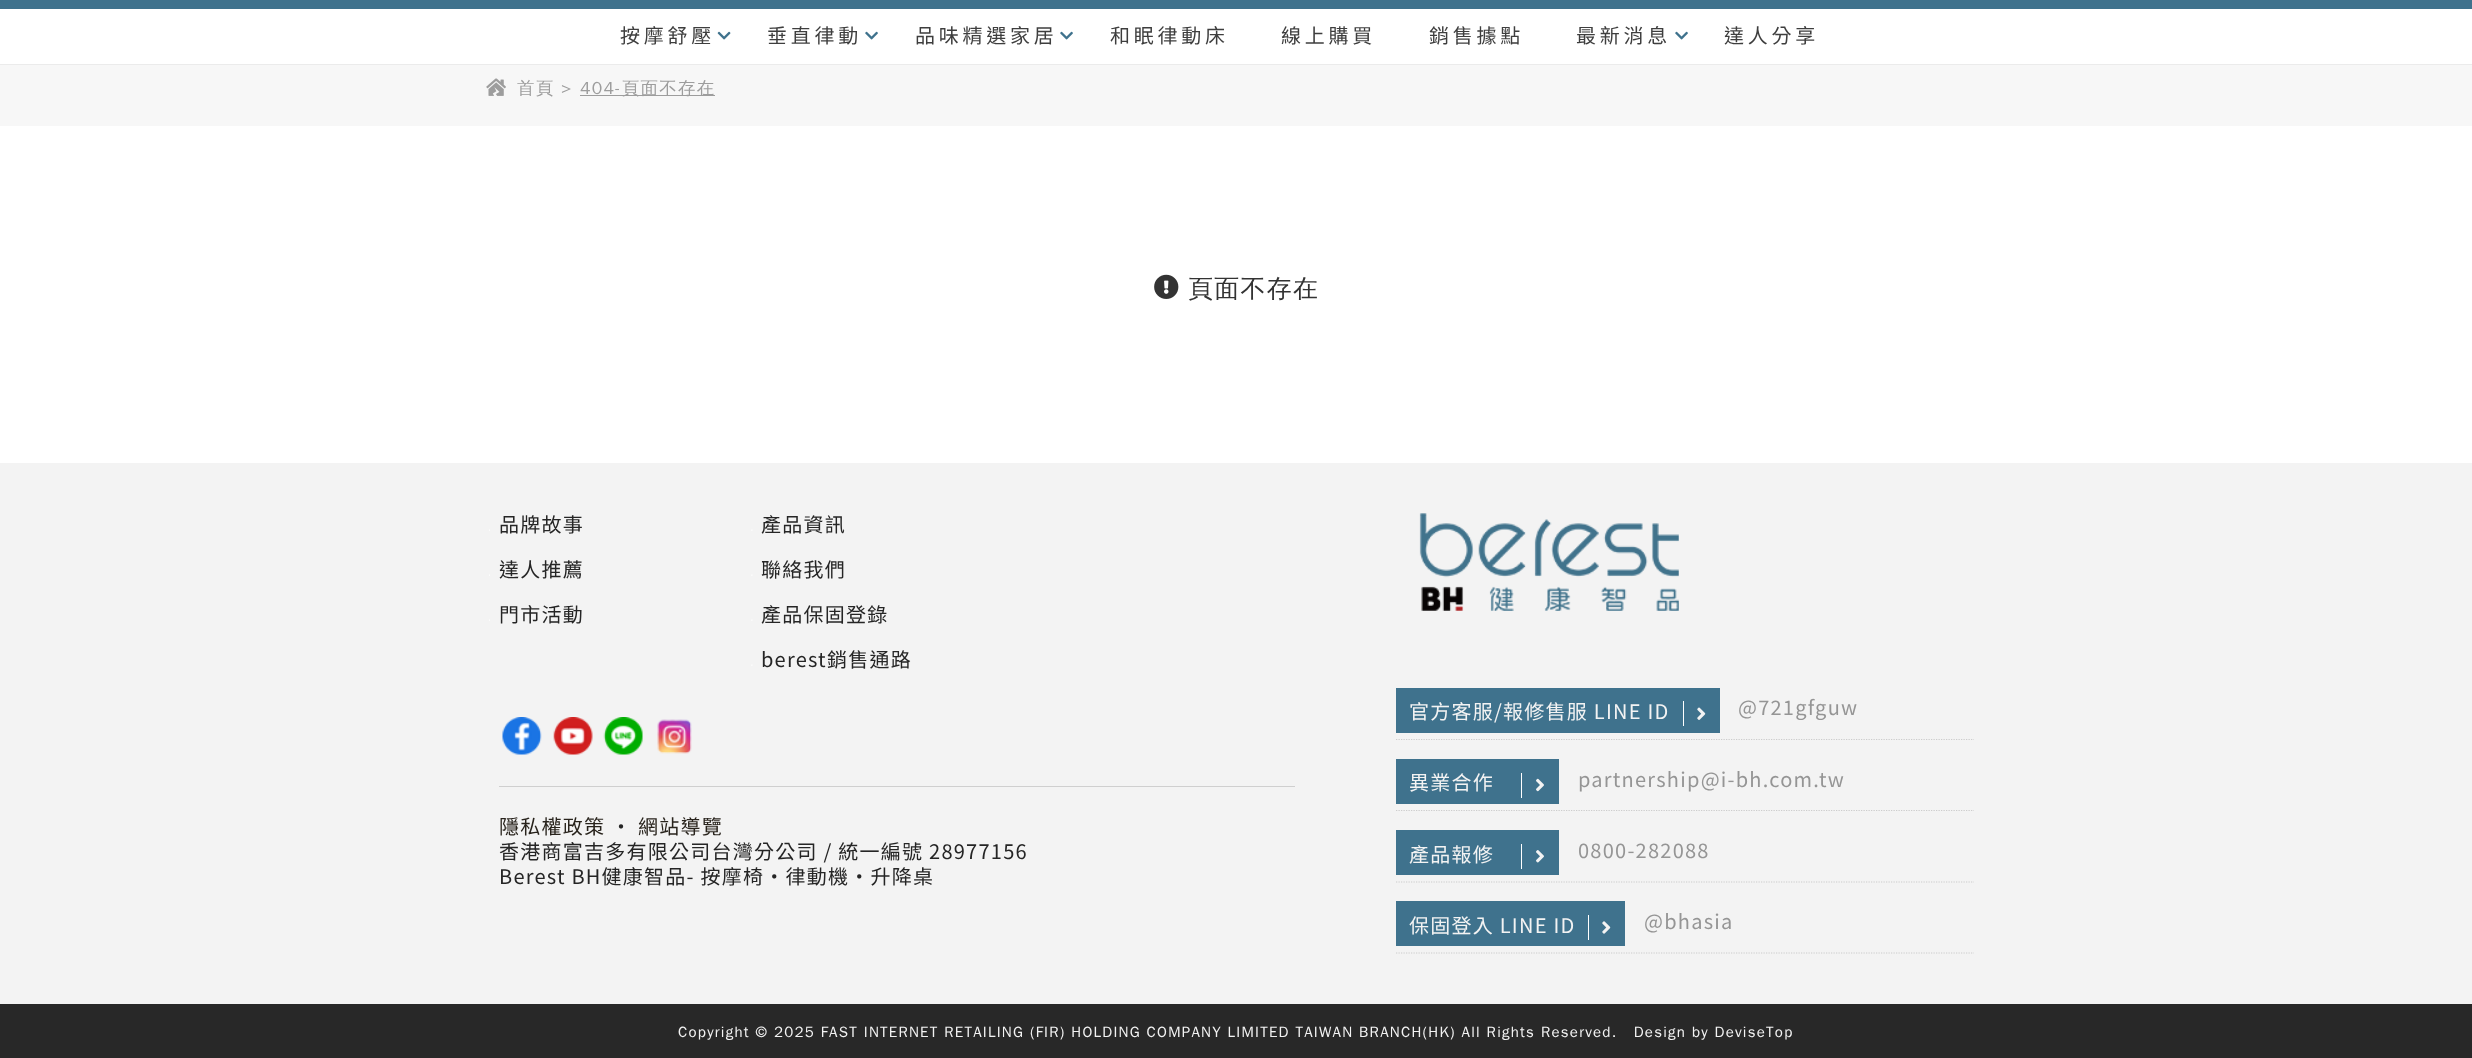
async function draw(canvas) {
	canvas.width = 2472;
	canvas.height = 1058;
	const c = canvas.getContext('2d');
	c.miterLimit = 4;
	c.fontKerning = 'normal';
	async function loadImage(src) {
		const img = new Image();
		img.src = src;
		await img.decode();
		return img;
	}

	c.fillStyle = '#fff';
	c.fillRect(0, 0, 2472, 1058);
	c.fillStyle = '#3f728d';
	c.fillRect(0, 0, 2472, 9);
	c.fillStyle = '#ebebeb';
	c.fillRect(0, 64, 2472, 1);
	c.letterSpacing = '3.75px';
	c.font = '100 20px Noto Sans TC';
	c.fillStyle = '#3e3e3e';
	c.fillText('按摩舒壓', 620, 43);
	c.drawImage(await loadImage('img1.png'), 717, 31, 14, 9);
	c.fillText('垂直律動', 767, 43);
	c.drawImage(await loadImage('img2.png'), 865, 31, 13, 9);
	c.fillText('品味精選家居', 915, 43);
	c.drawImage(await loadImage('img2.png'), 1060, 31, 13, 9);
	for (const [text, x, y] of [
		['和眠律動床', 1110, 43],
		['線上購買', 1281, 43],
		['銷售據點', 1429, 43],
		['最新消息', 1576, 43],
	]) {
		c.fillText(text, x, y);
	}
	c.drawImage(await loadImage('img2.png'), 1675, 31, 13, 9);
	c.fillText('達人分享', 1724, 43);
	c.fillStyle = '#f7f7f7';
	c.fillRect(0, 65, 2472, 61);
	c.drawImage(await loadImage('img3.png'), 486, 78, 20, 18);
	c.letterSpacing = '1.25px';
	c.font = '500 17.5px WenQuanYi Zen Hei';
	c.fillStyle = '#9d9d9d';
	c.fillText('首頁 >', 517, 94);
	c.fillRect(580, 95, 135, 1);
	c.fillText('404-頁面不存在', 580, 94);
	c.drawImage(await loadImage('img4.png'), 1154, 274, 25, 25);
	c.font = '500 25px WenQuanYi Zen Hei';
	c.fillStyle = '#333';
	c.fillText('頁面不存在', 1188, 297);
	c.fillStyle = '#f3f3f3';
	c.fillRect(0, 463, 2472, 541);
	c.drawImage(await loadImage('img5.png'), 489, 529, 1, 2);
	c.font = '100 20px Noto Sans TC';
	c.fillStyle = '#252525';
	c.fillText('品牌故事', 499, 532);
	c.drawImage(await loadImage('img5.png'), 489, 574, 1, 2);
	c.fillText('達人推薦', 499, 577);
	c.drawImage(await loadImage('img5.png'), 489, 619, 1, 2);
	c.fillText('門市活動', 499, 622);
	c.drawImage(await loadImage('img6.png'), 751, 529, 2, 2);
	c.fillText('產品資訊', 761, 532);
	c.drawImage(await loadImage('img6.png'), 751, 574, 2, 2);
	c.fillText('聯絡我們', 761, 577);
	c.drawImage(await loadImage('img6.png'), 751, 619, 2, 2);
	c.fillText('產品保固登錄', 761, 622);
	c.drawImage(await loadImage('img6.png'), 751, 664, 2, 2);
	c.fillText('berest銷售通路', 761, 667);
	c.drawImage(await loadImage('img7.png'), 502, 717, 40, 38);
	c.drawImage(await loadImage('img8.png'), 553, 717, 40, 38);
	c.drawImage(await loadImage('img9.png'), 603, 717, 40, 38);
	c.drawImage(await loadImage('img10.png'), 657, 719, 35, 35);
	c.fillStyle = '#cfcfcf';
	c.fillRect(499, 786, 796, 1);
	c.fillStyle = '#28231c';
	c.fillText('隱私權政策', 499, 834);
	c.fillStyle = '#252525';
	c.fillText('・', 611, 834);
	c.fillStyle = '#28231c';
	c.fillText('網站導覽', 638, 834);
	c.fillStyle = '#252525';
	c.fillText('香港商富吉多有限公司台灣分公司 / 統一編號 28977156', 499, 859);
	c.fillText('Berest BH健康智品- 按摩椅‧律動機‧升降桌', 499, 884);
	c.drawImage(await loadImage('img11.png'), 1419, 513, 260, 98);
	c.beginPath();
	c.moveTo(1396, 739.5);
	c.lineTo(1974, 739.5);
	c.strokeStyle = '#ccc';
	c.lineWidth = 1.2;
	c.setLineDash([1.25, 1.25]);
	c.stroke();
	c.fillStyle = '#3f728d';
	c.fillRect(1396, 688, 324, 45);
	c.fillStyle = '#f3f3f3';
	c.fillText('官方客服/報修售服 LINE ID', 1409, 719);
	c.fillStyle = '#fff';
	c.fillRect(1683, 701, 1, 25);
	c.drawImage(await loadImage('img12.png'), 1697, 707, 9, 13);
	c.fillStyle = '#959595';
	c.fillText('@721gfguw', 1738, 715);
	c.beginPath();
	c.moveTo(1396, 810.5);
	c.lineTo(1974, 810.5);
	c.stroke();
	c.fillStyle = '#3f728d';
	c.fillRect(1396, 759, 163, 45);
	c.fillStyle = '#f3f3f3';
	c.fillText('異業合作', 1409, 790);
	c.fillStyle = '#fff';
	c.fillRect(1521, 773, 1, 25);
	c.drawImage(await loadImage('img13.png'), 1536, 778, 8, 14);
	c.fillStyle = '#959595';
	c.fillText('partnership@i-bh.com.tw', 1578, 787);
	c.beginPath();
	c.moveTo(1396, 882);
	c.lineTo(1974, 882);
	c.stroke();
	c.fillStyle = '#3f728d';
	c.fillRect(1396, 830, 163, 45);
	c.fillStyle = '#f3f3f3';
	c.fillText('產品報修', 1409, 862);
	c.fillStyle = '#fff';
	c.fillRect(1521, 844, 1, 25);
	c.drawImage(await loadImage('img14.png'), 1536, 850, 8, 13);
	c.fillStyle = '#959595';
	c.fillText('0800-282088', 1578, 858);
	c.beginPath();
	c.moveTo(1396, 953);
	c.lineTo(1974, 953);
	c.stroke();
	c.fillStyle = '#3f728d';
	c.fillRect(1396, 901, 229, 45);
	c.fillStyle = '#f3f3f3';
	c.fillText('保固登入 LINE ID', 1409, 933);
	c.fillStyle = '#fff';
	c.fillRect(1588, 915, 1, 25);
	c.drawImage(await loadImage('img15.png'), 1602, 921, 9, 13);
	c.fillStyle = '#959595';
	c.fillText('@bhasia', 1644, 929);
	c.fillStyle = '#282828';
	c.fillRect(0, 1004, 2472, 54);
	c.font = '500 15px WenQuanYi Zen Hei';
	c.fillStyle = '#f3f3f3';
	c.fillText('Copyright © 2025 FAST INTERNET RETAILING (FIR) HOLDING COMPANY LIMITED TAIWAN BRANCH(HK) All Rights Reserved.　Design by DeviseTop', 678, 1037);
}

draw(document.querySelector('canvas'));
